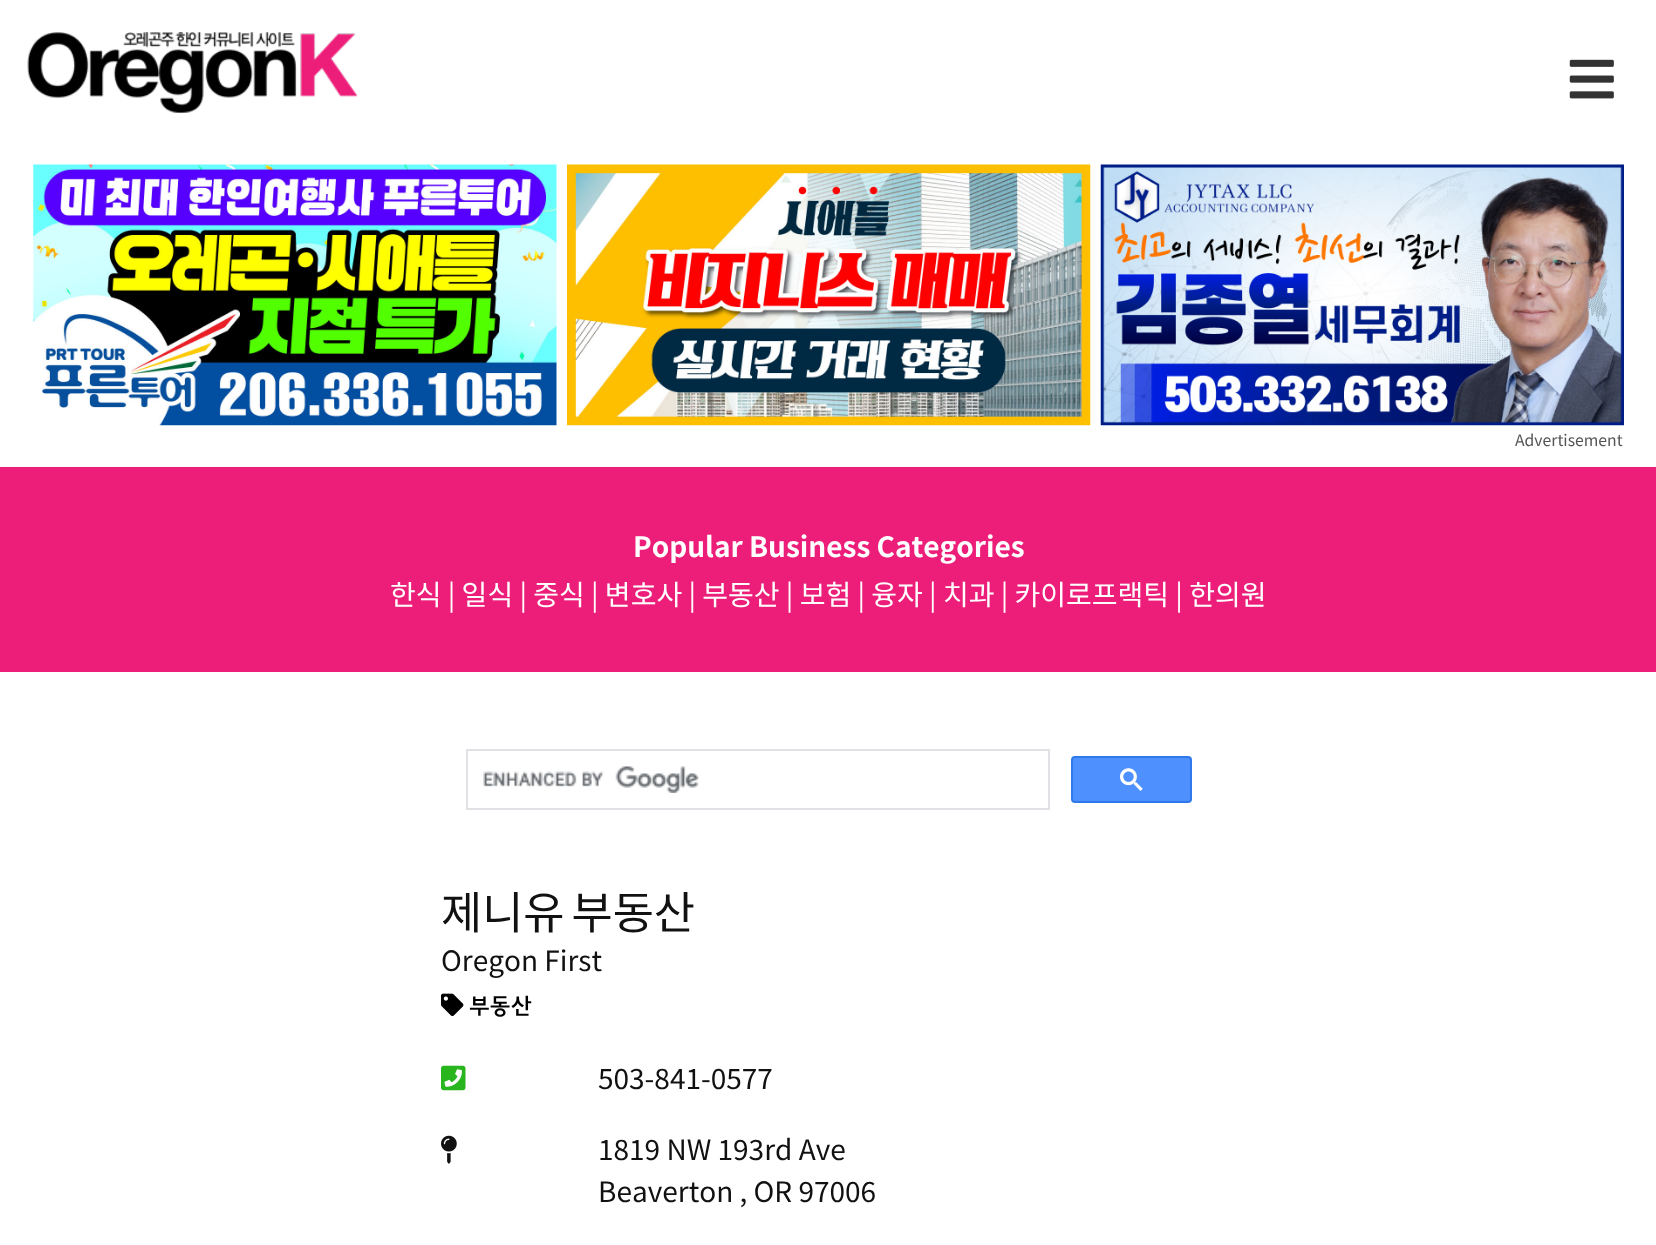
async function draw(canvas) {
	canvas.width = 1656;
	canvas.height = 1245;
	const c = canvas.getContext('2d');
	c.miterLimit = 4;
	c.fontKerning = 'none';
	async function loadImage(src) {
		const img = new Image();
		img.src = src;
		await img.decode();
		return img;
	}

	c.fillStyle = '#fff';
	c.fillRect(0, 0, 1656, 1245);
	c.drawImage(await loadImage('img1.png'), 27, 32, 331, 82);
	c.drawImage(await loadImage('img2.png'), 1569, 59, 45, 40);
	c.drawImage(await loadImage('img3.png'), 33, 164, 524, 262);
	c.drawImage(await loadImage('img4.png'), 567, 164, 524, 262);
	c.drawImage(await loadImage('img5.png'), 1100, 164, 524, 262);
	c.font = '15.75px Noto Sans KR';
	c.fillStyle = '#555';
	c.fillText('Advertisement', 1515, 446);
	c.fillStyle = '#ec1e79';
	c.fillRect(0, 467, 1656, 205);
	c.font = 'bold 28px Noto Sans KR';
	c.fillStyle = '#fff';
	c.fillText('Popular Business Categories', 633, 557);
	c.font = '28px Noto Sans KR';
	c.fillText('한식 | 일식 | 중식 | 변호사 | 부동산 | 보험 | 융자 | 치과 | 카이로프랙틱 | 한의원', 390, 605);
	c.strokeStyle = '#dfe1e5';
	c.lineWidth = 2;
	c.strokeRect(467, 750, 582, 59);
	c.drawImage(await loadImage('img6.png'), 483, 766, 216, 27);
	c.fillStyle = '#4d90fe';
	c.beginPath();
	c.roundRect(1072, 757, 119, 45, 3);
	c.fill();
	c.strokeStyle = '#3079ed';
	c.stroke();
	c.drawImage(await loadImage('img7.png'), 1120, 768, 23, 23);
	c.wordSpacing = '-3px';
	c.font = '44.75px Noto Sans KR';
	c.fillStyle = '#111';
	c.fillText('제니유 부동산', 441, 929);
	c.wordSpacing = '0px';
	c.font = '28px Noto Sans KR';
	c.fillText('Oregon First', 441, 971);
	c.drawImage(await loadImage('img8.png'), 441, 993, 23, 23);
	c.font = '22.5px JejuGothic';
	c.fillStyle = '#000';
	c.fillText('부동산', 469, 1013);
	c.drawImage(await loadImage('img9.png'), 441, 1065, 25, 26);
	c.font = '28px Noto Sans KR';
	c.fillStyle = '#111';
	c.fillText('503-841-0577', 598, 1089);
	c.drawImage(await loadImage('img10.png'), 441, 1135, 16, 29);
	c.fillText('1819 NW 193rd Ave', 598, 1160);
	c.fillText('Beaverton , OR 97006', 598, 1202);
}

draw(document.querySelector('canvas'));
